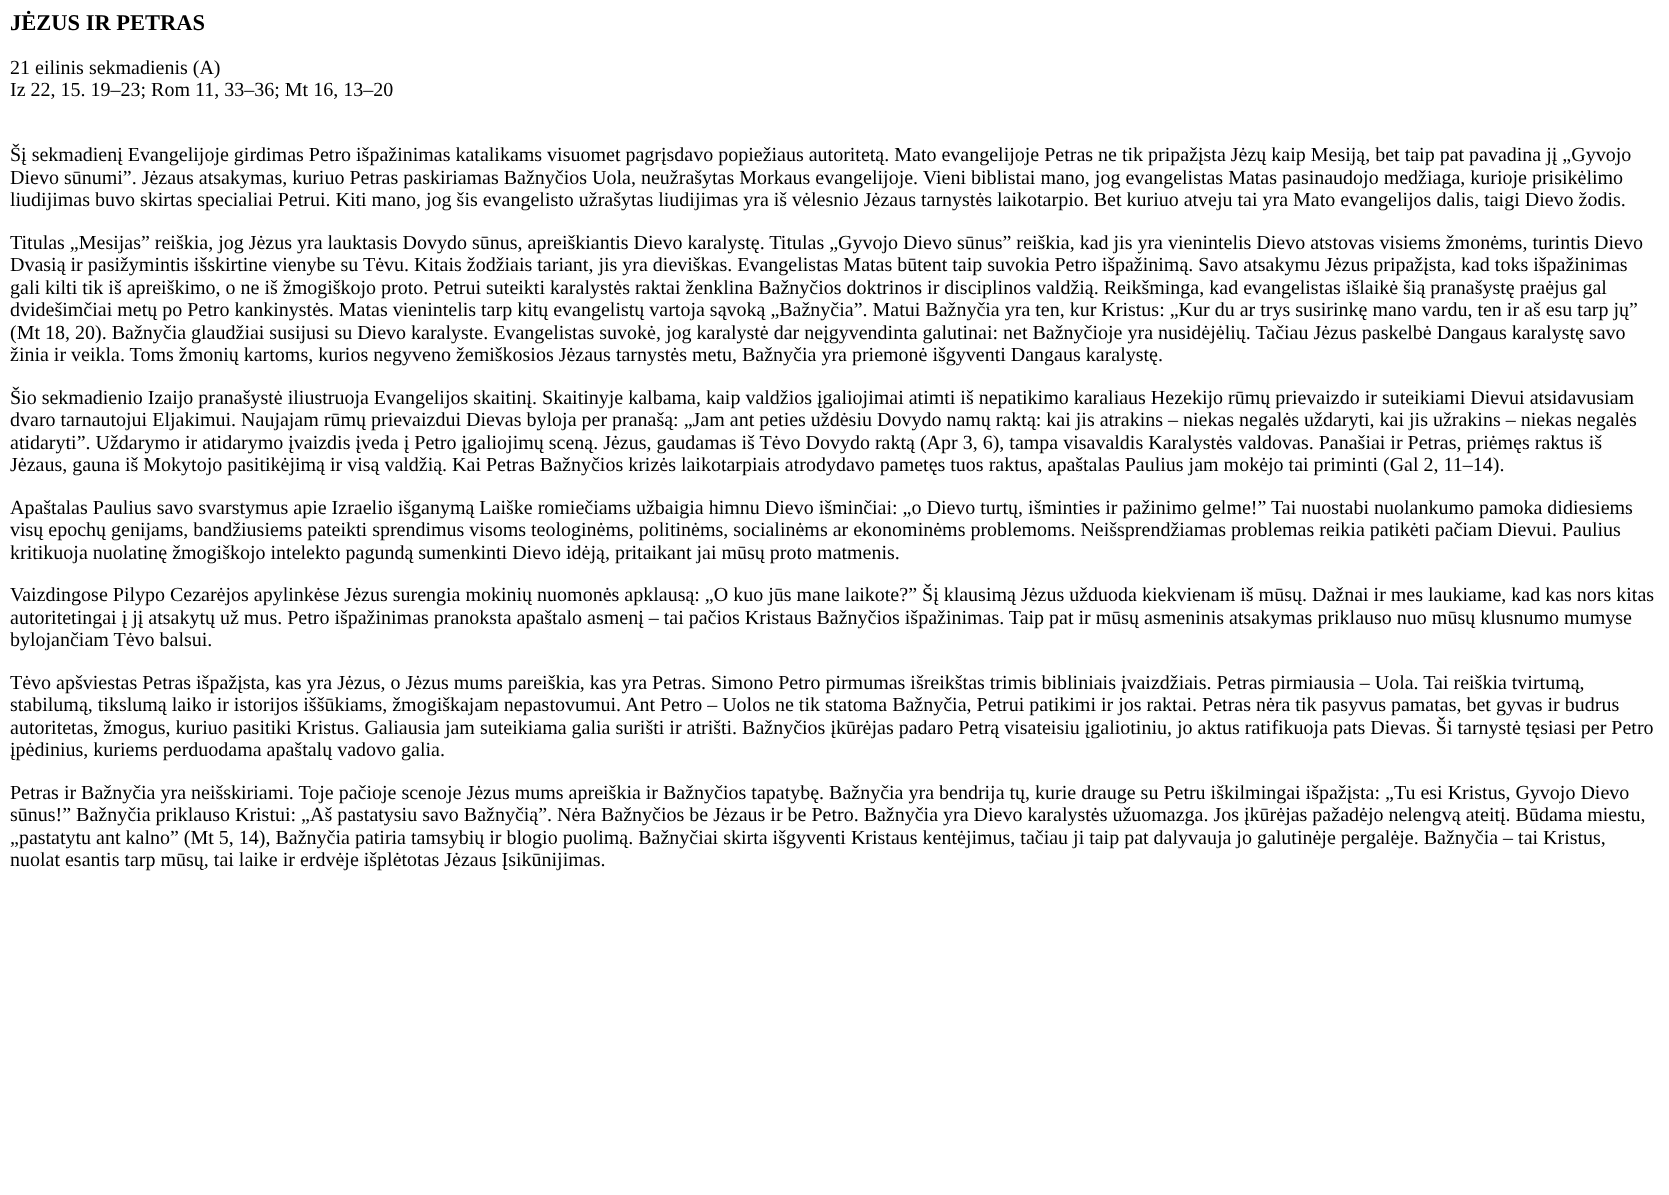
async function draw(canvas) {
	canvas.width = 1669;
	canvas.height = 1195;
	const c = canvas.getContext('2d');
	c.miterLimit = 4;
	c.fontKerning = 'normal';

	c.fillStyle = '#fff';
	c.fillRect(0, 0, 1669, 1195);
	c.font = 'bold 22.5px Liberation Serif';
	c.fillStyle = '#000';
	c.fillText('JĖZUS IR PETRAS', 10, 30);
	c.font = '20px Liberation Serif';
	for (const [text, x, y] of [
		['21 eilinis sekmadienis (A)', 10, 74],
		['Iz 22, 15. 19–23; Rom 11, 33–36; Mt 16, 13–20', 10, 96],
		['Šį sekmadienį Evangelijoje girdimas Petro išpažinimas katalikams visuomet pagrįsdavo popiežiaus autoritetą. Mato evangelijoje Petras ne tik pripažįsta Jėzų kaip Mesiją, bet taip pat pavadina jį „Gyvojo', 10, 161],
		['Dievo sūnumi”. Jėzaus atsakymas, kuriuo Petras paskiriamas Bažnyčios Uola, neužrašytas Morkaus evangelijoje. Vieni biblistai mano, jog evangelistas Matas pasinaudojo medžiaga, kurioje prisikėlimo', 10, 184],
		['liudijimas buvo skirtas specialiai Petrui. Kiti mano, jog šis evangelisto užrašytas liudijimas yra iš vėlesnio Jėzaus tarnystės laikotarpio. Bet kuriuo atveju tai yra Mato evangelijos dalis, taigi Dievo žodis.', 10, 206],
		['Titulas „Mesijas” reiškia, jog Jėzus yra lauktasis Dovydo sūnus, apreiškiantis Dievo karalystę. Titulas „Gyvojo Dievo sūnus” reiškia, kad jis yra vienintelis Dievo atstovas visiems žmonėms, turintis Dievo', 10, 249],
		['Dvasią ir pasižymintis išskirtine vienybe su Tėvu. Kitais žodžiais tariant, jis yra dieviškas. Evangelistas Matas būtent taip suvokia Petro išpažinimą. Savo atsakymu Jėzus pripažįsta, kad toks išpažinimas', 10, 271],
		['gali kilti tik iš apreiškimo, o ne iš žmogiškojo proto. Petrui suteikti karalystės raktai ženklina Bažnyčios doktrinos ir disciplinos valdžią. Reikšminga, kad evangelistas išlaikė šią pranašystę praėjus gal', 10, 294],
		['dvidešimčiai metų po Petro kankinystės. Matas vienintelis tarp kitų evangelistų vartoja sąvoką „Bažnyčia”. Matui Bažnyčia yra ten, kur Kristus: „Kur du ar trys susirinkę mano vardu, ten ir aš esu tarp jų”', 10, 316],
		['(Mt 18, 20). Bažnyčia glaudžiai susijusi su Dievo karalyste. Evangelistas suvokė, jog karalystė dar neįgyvendinta galutinai: net Bažnyčioje yra nusidėjėlių. Tačiau Jėzus paskelbė Dangaus karalystę savo', 10, 339],
		['žinia ir veikla. Toms žmonių kartoms, kurios negyveno žemiškosios Jėzaus tarnystės metu, Bažnyčia yra priemonė išgyventi Dangaus karalystę.', 10, 361],
		['Šio sekmadienio Izaijo pranašystė iliustruoja Evangelijos skaitinį. Skaitinyje kalbama, kaip valdžios įgaliojimai atimti iš nepatikimo karaliaus Hezekijo rūmų prievaizdo ir suteikiami Dievui atsidavusiam', 10, 404],
		['dvaro tarnautojui Eljakimui. Naujajam rūmų prievaizdui Dievas byloja per pranašą: „Jam ant peties uždėsiu Dovydo namų raktą: kai jis atrakins – niekas negalės uždaryti, kai jis užrakins – niekas negalės', 10, 426],
		['atidaryti”. Uždarymo ir atidarymo įvaizdis įveda į Petro įgaliojimų sceną. Jėzus, gaudamas iš Tėvo Dovydo raktą (Apr 3, 6), tampa visavaldis Karalystės valdovas. Panašiai ir Petras, priėmęs raktus iš', 10, 449],
		['Jėzaus, gauna iš Mokytojo pasitikėjimą ir visą valdžią. Kai Petras Bažnyčios krizės laikotarpiais atrodydavo pametęs tuos raktus, apaštalas Paulius jam mokėjo tai priminti (Gal 2, 11–14).', 10, 471],
		['Apaštalas Paulius savo svarstymus apie Izraelio išganymą Laiške romiečiams užbaigia himnu Dievo išminčiai: „o Dievo turtų, išminties ir pažinimo gelme!” Tai nuostabi nuolankumo pamoka didiesiems', 10, 514],
		['visų epochų genijams, bandžiusiems pateikti sprendimus visoms teologinėms, politinėms, socialinėms ar ekonominėms problemoms. Neišsprendžiamas problemas reikia patikėti pačiam Dievui. Paulius', 10, 536],
		['kritikuoja nuolatinę žmogiškojo intelekto pagundą sumenkinti Dievo idėją, pritaikant jai mūsų proto matmenis.', 10, 559],
		['Vaizdingose Pilypo Cezarėjos apylinkėse Jėzus surengia mokinių nuomonės apklausą: „O kuo jūs mane laikote?” Šį klausimą Jėzus užduoda kiekvienam iš mūsų. Dažnai ir mes laukiame, kad kas nors kitas', 10, 601],
		['autoritetingai į jį atsakytų už mus. Petro išpažinimas pranoksta apaštalo asmenį – tai pačios Kristaus Bažnyčios išpažinimas. Taip pat ir mūsų asmeninis atsakymas priklauso nuo mūsų klusnumo mumyse', 10, 624],
		['bylojančiam Tėvo balsui.', 10, 646],
		['Tėvo apšviestas Petras išpažįsta, kas yra Jėzus, o Jėzus mums pareiškia, kas yra Petras. Simono Petro pirmumas išreikštas trimis bibliniais įvaizdžiais. Petras pirmiausia – Uola. Tai reiškia tvirtumą,', 10, 689],
		['stabilumą, tikslumą laiko ir istorijos iššūkiams, žmogiškajam nepastovumui. Ant Petro – Uolos ne tik statoma Bažnyčia, Petrui patikimi ir jos raktai. Petras nėra tik pasyvus pamatas, bet gyvas ir budrus', 10, 711],
		['autoritetas, žmogus, kuriuo pasitiki Kristus. Galiausia jam suteikiama galia surišti ir atrišti. Bažnyčios įkūrėjas padaro Petrą visateisiu įgaliotiniu, jo aktus ratifikuoja pats Dievas. Ši tarnystė tęsiasi per Petro', 10, 734],
		['įpėdinius, kuriems perduodama apaštalų vadovo galia.', 10, 756],
		['Petras ir Bažnyčia yra neišskiriami. Toje pačioje scenoje Jėzus mums apreiškia ir Bažnyčios tapatybę. Bažnyčia yra bendrija tų, kurie drauge su Petru iškilmingai išpažįsta: „Tu esi Kristus, Gyvojo Dievo', 10, 799],
		['sūnus!” Bažnyčia priklauso Kristui: „Aš pastatysiu savo Bažnyčią”. Nėra Bažnyčios be Jėzaus ir be Petro. Bažnyčia yra Dievo karalystės užuomazga. Jos įkūrėjas pažadėjo nelengvą ateitį. Būdama miestu,', 10, 821],
		['„pastatytu ant kalno” (Mt 5, 14), Bažnyčia patiria tamsybių ir blogio puolimą. Bažnyčiai skirta išgyventi Kristaus kentėjimus, tačiau ji taip pat dalyvauja jo galutinėje pergalėje. Bažnyčia – tai Kristus,', 10, 844],
		['nuolat esantis tarp mūsų, tai laike ir erdvėje išplėtotas Jėzaus Įsikūnijimas.', 10, 866],
	]) {
		c.fillText(text, x, y);
	}
}

draw(document.querySelector('canvas'));
